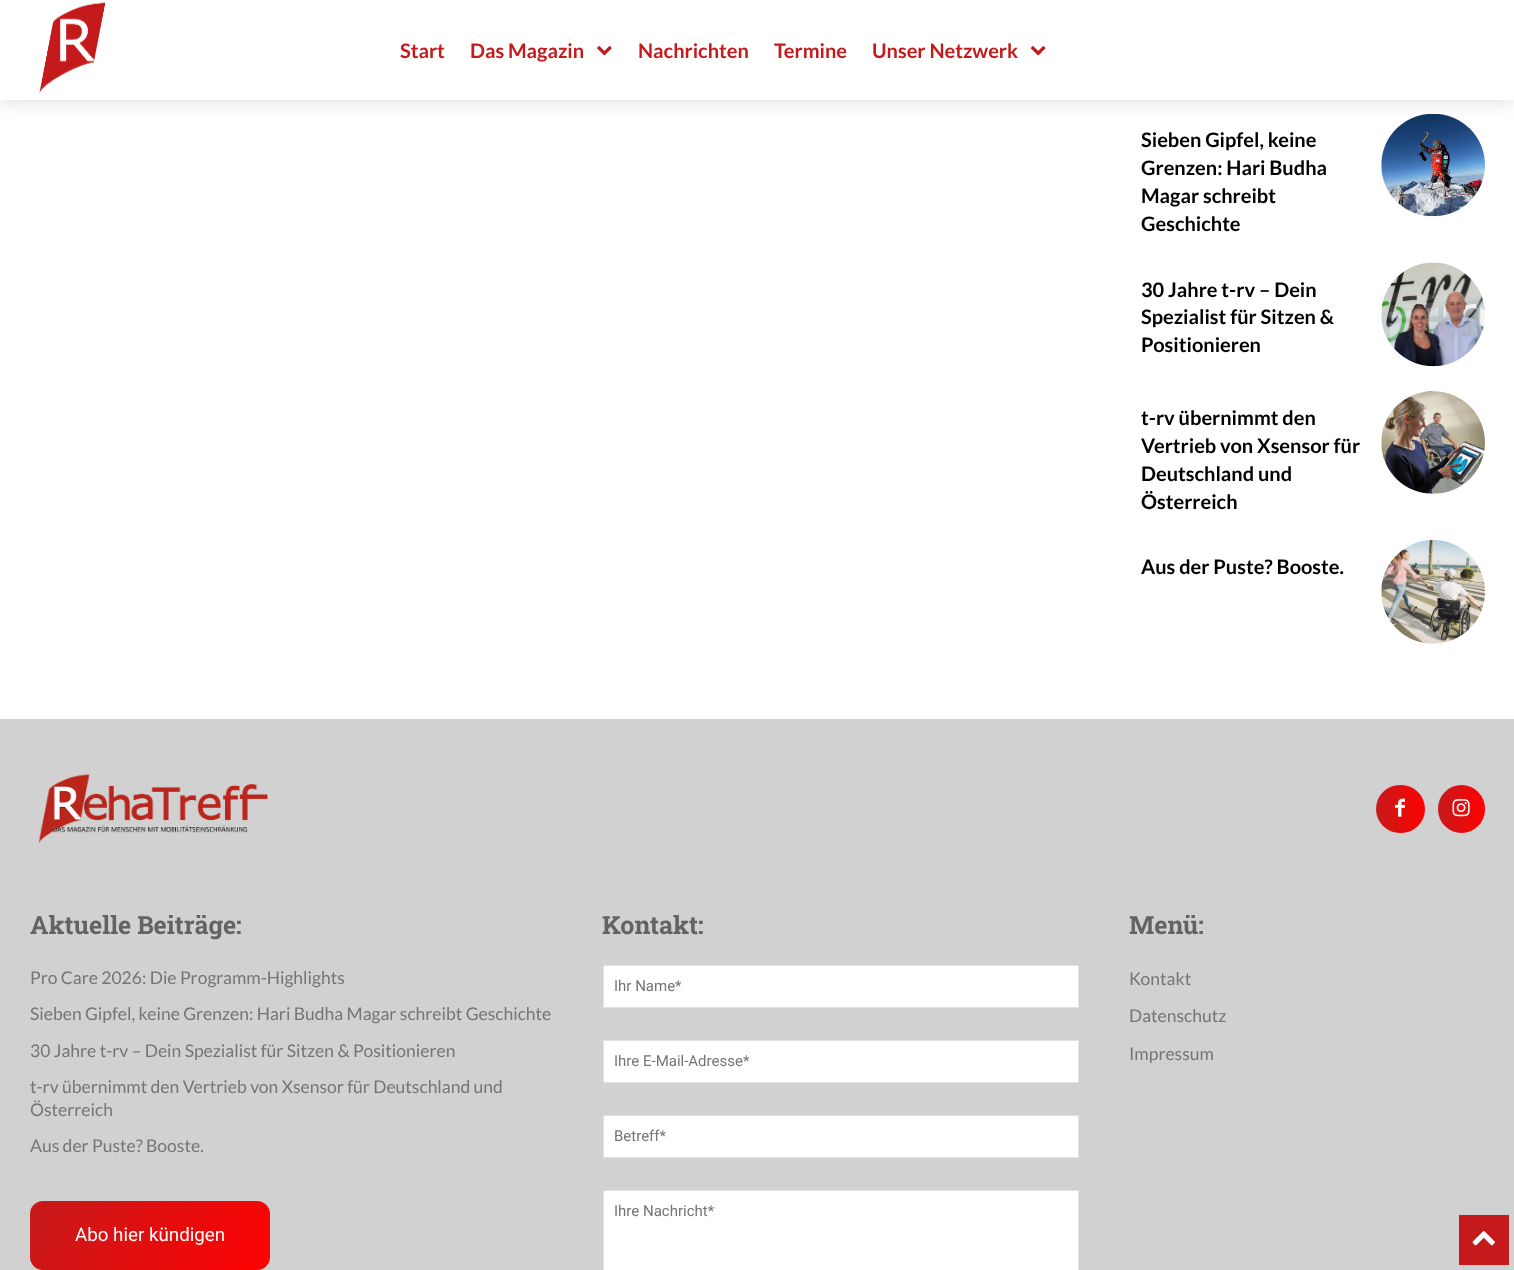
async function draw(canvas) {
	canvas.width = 1514;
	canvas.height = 1270;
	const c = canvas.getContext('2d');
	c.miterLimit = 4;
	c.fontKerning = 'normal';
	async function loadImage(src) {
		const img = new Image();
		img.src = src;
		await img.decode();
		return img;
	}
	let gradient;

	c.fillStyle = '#fff';
	c.fillRect(0, 0, 1514, 1270);
	c.drawImage(await loadImage('img4.png'), 1381, 113, 104, 104);
	c.fillStyle = '#00000029';
	c.filter = 'blur(10px)';
	c.beginPath();
	c.rect(0, 0, 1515, 100);
	c.fill();
	c.filter = 'none';
	c.fillStyle = '#fff';
	c.fillRect(0, 0, 1514, 100);
	c.drawImage(await loadImage('img1.png'), 39, 2, 67, 91);
	c.font = 'bold 20px Lato';
	c.fillStyle = '#c51a1b';
	c.fillText('Start', 400, 58);
	c.fillText('Das Magazin', 470, 58);
	c.drawImage(await loadImage('img2.png'), 597, 46, 15, 10);
	for (const [text, x, y] of [
		['Nachrichten', 638, 58],
		['Termine', 774, 58],
		['Unser Netzwerk', 872, 58],
	]) {
		c.fillText(text, x, y);
	}
	c.drawImage(await loadImage('img3.png'), 1030, 46, 16, 10);
	c.fillStyle = '#000';
	for (const [text, x, y] of [
		['Sieben Gipfel, keine', 1141, 147],
		['Grenzen: Hari Budha', 1141, 175],
		['Magar schreibt', 1141, 203],
		['Geschichte', 1141, 231],
		['30 Jahre t-rv – Dein', 1141, 297],
		['Spezialist für Sitzen &', 1141, 324],
		['Positionieren', 1141, 352],
	]) {
		c.fillText(text, x, y);
	}
	c.drawImage(await loadImage('img5.png'), 1381, 262, 104, 105);
	for (const [text, x, y] of [
		['t-rv übernimmt den', 1141, 425],
		['Vertrieb von Xsensor für', 1141, 453],
		['Deutschland und', 1141, 481],
		['Österreich', 1141, 509],
	]) {
		c.fillText(text, x, y);
	}
	c.drawImage(await loadImage('img6.png'), 1381, 391, 104, 103);
	c.fillText('Aus der Puste? Booste.', 1141, 574);
	c.drawImage(await loadImage('img7.png'), 1381, 540, 104, 104);
	c.fillStyle = '#d1d1d1';
	c.fillRect(0, 719, 1514, 551);
	c.drawImage(await loadImage('img8.png'), 38, 774, 230, 69);
	gradient = c.createLinearGradient(1425, 809, 1376, 809);
	gradient.addColorStop(0, '#ff0202');
	gradient.addColorStop(1, '#c51a1b');
	c.fillStyle = gradient;
	c.beginPath();
	c.roundRect(1376, 785, 49, 48, 24);
	c.fill();
	c.drawImage(await loadImage('img9.png'), 1395, 798, 10, 19);
	gradient = c.createLinearGradient(1485, 809, 1438, 809);
	gradient.addColorStop(0, '#ff0202');
	gradient.addColorStop(1, '#c51a1b');
	c.fillStyle = gradient;
	c.beginPath();
	c.roundRect(1438, 785, 47, 48, 23.5);
	c.fill();
	c.drawImage(await loadImage('img10.png'), 1452, 799, 18, 18);
	c.font = 'bold 25px Roboto Slab';
	c.fillStyle = '#636363';
	c.fillText('Aktuelle Beiträge:', 30, 934);
	c.font = '17.5px Lato';
	c.fillStyle = '#757575';
	for (const [text, x, y] of [
		['Pro Care 2026: Die Programm-Highlights', 30, 984],
		['Sieben Gipfel, keine Grenzen: Hari Budha Magar schreibt Geschichte', 30, 1020],
		['30 Jahre t-rv – Dein Spezialist für Sitzen & Positionieren', 30, 1057],
		['t-rv übernimmt den Vertrieb von Xsensor für Deutschland und', 30, 1093],
		['Österreich', 30, 1116],
		['Aus der Puste? Booste.', 30, 1152],
	]) {
		c.fillText(text, x, y);
	}
	gradient = c.createLinearGradient(255, 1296, 45, 1175);
	gradient.addColorStop(0, '#ff0202');
	gradient.addColorStop(1, '#c51a1b');
	c.fillStyle = gradient;
	c.beginPath();
	c.roundRect(30, 1201, 240, 69, 13);
	c.fill();
	c.font = '18.75px Roboto';
	c.fillStyle = '#fff';
	c.fillText('Abo hier kündigen', 75, 1241);
	c.font = 'bold 25px Roboto Slab';
	c.fillStyle = '#636363';
	c.fillText('Kontakt:', 602, 934);
	c.fillStyle = '#fff';
	c.beginPath();
	c.rect(603.5, 965.5, 475, 42);
	c.fill();
	c.strokeStyle = '#e1e1e1';
	c.stroke();
	c.font = '15px Roboto';
	c.fillStyle = '#757575';
	c.fillText('Ihr Name*', 614, 991);
	c.fillStyle = '#fff';
	c.beginPath();
	c.rect(603.5, 1040.5, 475, 42);
	c.fill();
	c.stroke();
	c.fillStyle = '#757575';
	c.fillText('Ihre E-Mail-Adresse*', 614, 1066);
	c.fillStyle = '#fff';
	c.beginPath();
	c.rect(603.5, 1115.5, 475, 42);
	c.fill();
	c.stroke();
	c.fillStyle = '#757575';
	c.fillText('Betreff*', 614, 1141);
	c.fillStyle = '#fff';
	c.beginPath();
	c.rect(603.5, 1190.5, 475, 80);
	c.fill();
	c.stroke();
	c.fillStyle = '#757575';
	c.fillText('Ihre Nachricht*', 614, 1216);
	c.font = 'bold 25px Roboto Slab';
	c.fillStyle = '#636363';
	c.fillText('Menü:', 1129, 934);
	c.font = '17.5px Lato';
	c.fillStyle = '#757575';
	for (const [text, x, y] of [
		['Kontakt', 1129, 985],
		['Datenschutz', 1129, 1022],
		['Impressum', 1129, 1060],
	]) {
		c.fillText(text, x, y);
	}
	c.fillStyle = '#c51a1b';
	c.fillRect(1459, 1215, 50, 50);
	c.drawImage(await loadImage('img11.png'), 1472, 1231, 23, 15);
}

draw(document.querySelector('canvas'));
